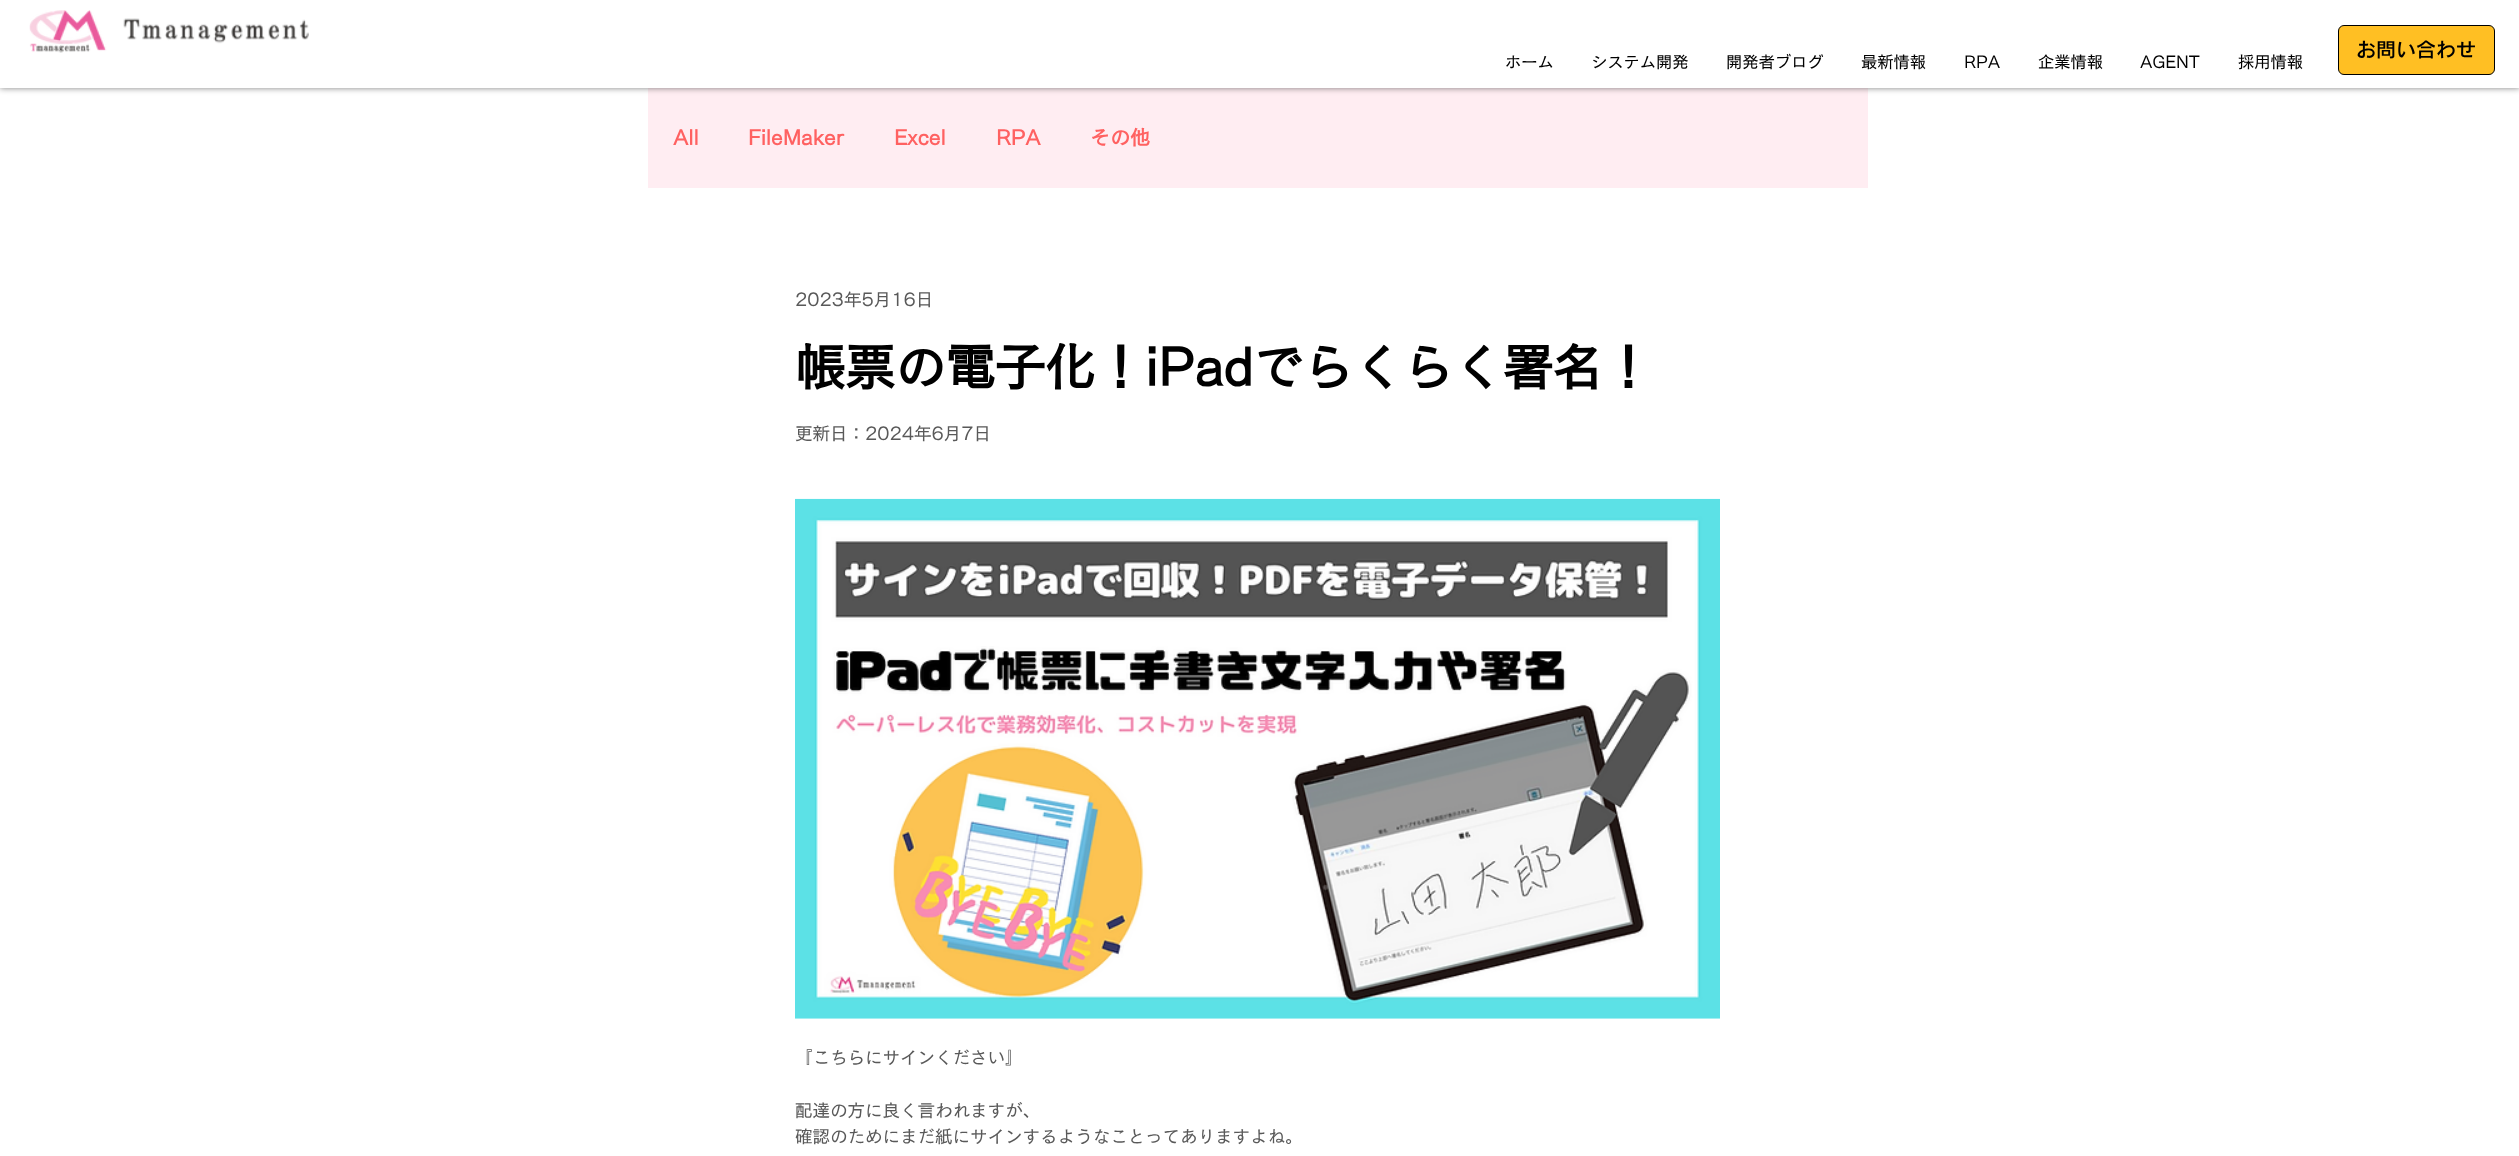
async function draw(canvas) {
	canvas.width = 2519;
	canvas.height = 1156;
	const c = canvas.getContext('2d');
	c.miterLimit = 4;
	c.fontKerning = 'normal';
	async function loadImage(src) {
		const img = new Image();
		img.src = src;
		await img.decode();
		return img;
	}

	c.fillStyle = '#fff';
	c.fillRect(0, 0, 2519, 1156);
	c.fillStyle = '#ffedf2';
	c.fillRect(648, 88, 1220, 100);
	c.fillStyle = '#00000080';
	c.filter = 'blur(3px)';
	c.beginPath();
	c.rect(0, 0, 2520, 88);
	c.fill();
	c.filter = 'none';
	c.fillStyle = '#fff';
	c.fillRect(0, 0, 2519, 88);
	c.drawImage(await loadImage('img1.png'), 29, 10, 78, 43);
	c.drawImage(await loadImage('img2.png'), 123, 18, 186, 26);
	c.fillStyle = '#ffbf23';
	c.beginPath();
	c.roundRect(2338.5, 25.5, 156, 49, 5.5);
	c.fill();
	c.strokeStyle = '#000';
	c.stroke();
	c.font = '600 20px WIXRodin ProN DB';
	c.fillStyle = '#000';
	c.fillText('お問い合わせ', 2356, 57);
	c.font = '500 16.25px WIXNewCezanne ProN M';
	for (const [text, x, y] of [
		['ホーム', 1505, 68],
		['システム開発', 1591, 68],
		['開発者ブログ', 1726, 68],
		['最新情報', 1861, 68],
		['RPA', 1964, 68],
		['企業情報', 2038, 68],
		['AGENT', 2140, 68],
		['採用情報', 2238, 68],
	]) {
		c.fillText(text, x, y);
	}
	c.font = 'bold 20px WIXNewCezanne ProN M';
	c.fillStyle = '#ff6161';
	for (const [text, x, y] of [
		['All', 673, 145],
		['FileMaker', 748, 145],
		['Excel', 894, 145],
		['RPA', 996, 145],
		['その他', 1090, 145],
	]) {
		c.fillText(text, x, y);
	}
	c.font = '500 17.5px WIXNewCezanne ProN M';
	c.fillStyle = '#595959';
	c.fillText('2023年5月16日', 795, 306);
	c.font = 'bold 50px WIXNewCezanne ProN M';
	c.fillStyle = '#000';
	c.fillText('帳票の電子化！iPadでらくらく署名！', 795, 386);
	c.font = '500 17.5px WIXNewCezanne ProN M';
	c.fillStyle = '#595959';
	c.fillText('更新日：2024年6月7日', 795, 440);
	c.drawImage(await loadImage('img3.png'), 795, 498, 925, 521);
	for (const [text, x, y] of [
		['『こちらにサインください』', 795, 1064],
		['配達の方に良く言われますが、', 795, 1117],
		['確認のためにまだ紙にサインするようなことってありますよね。', 795, 1143],
	]) {
		c.fillText(text, x, y);
	}
}

draw(document.querySelector('canvas'));
